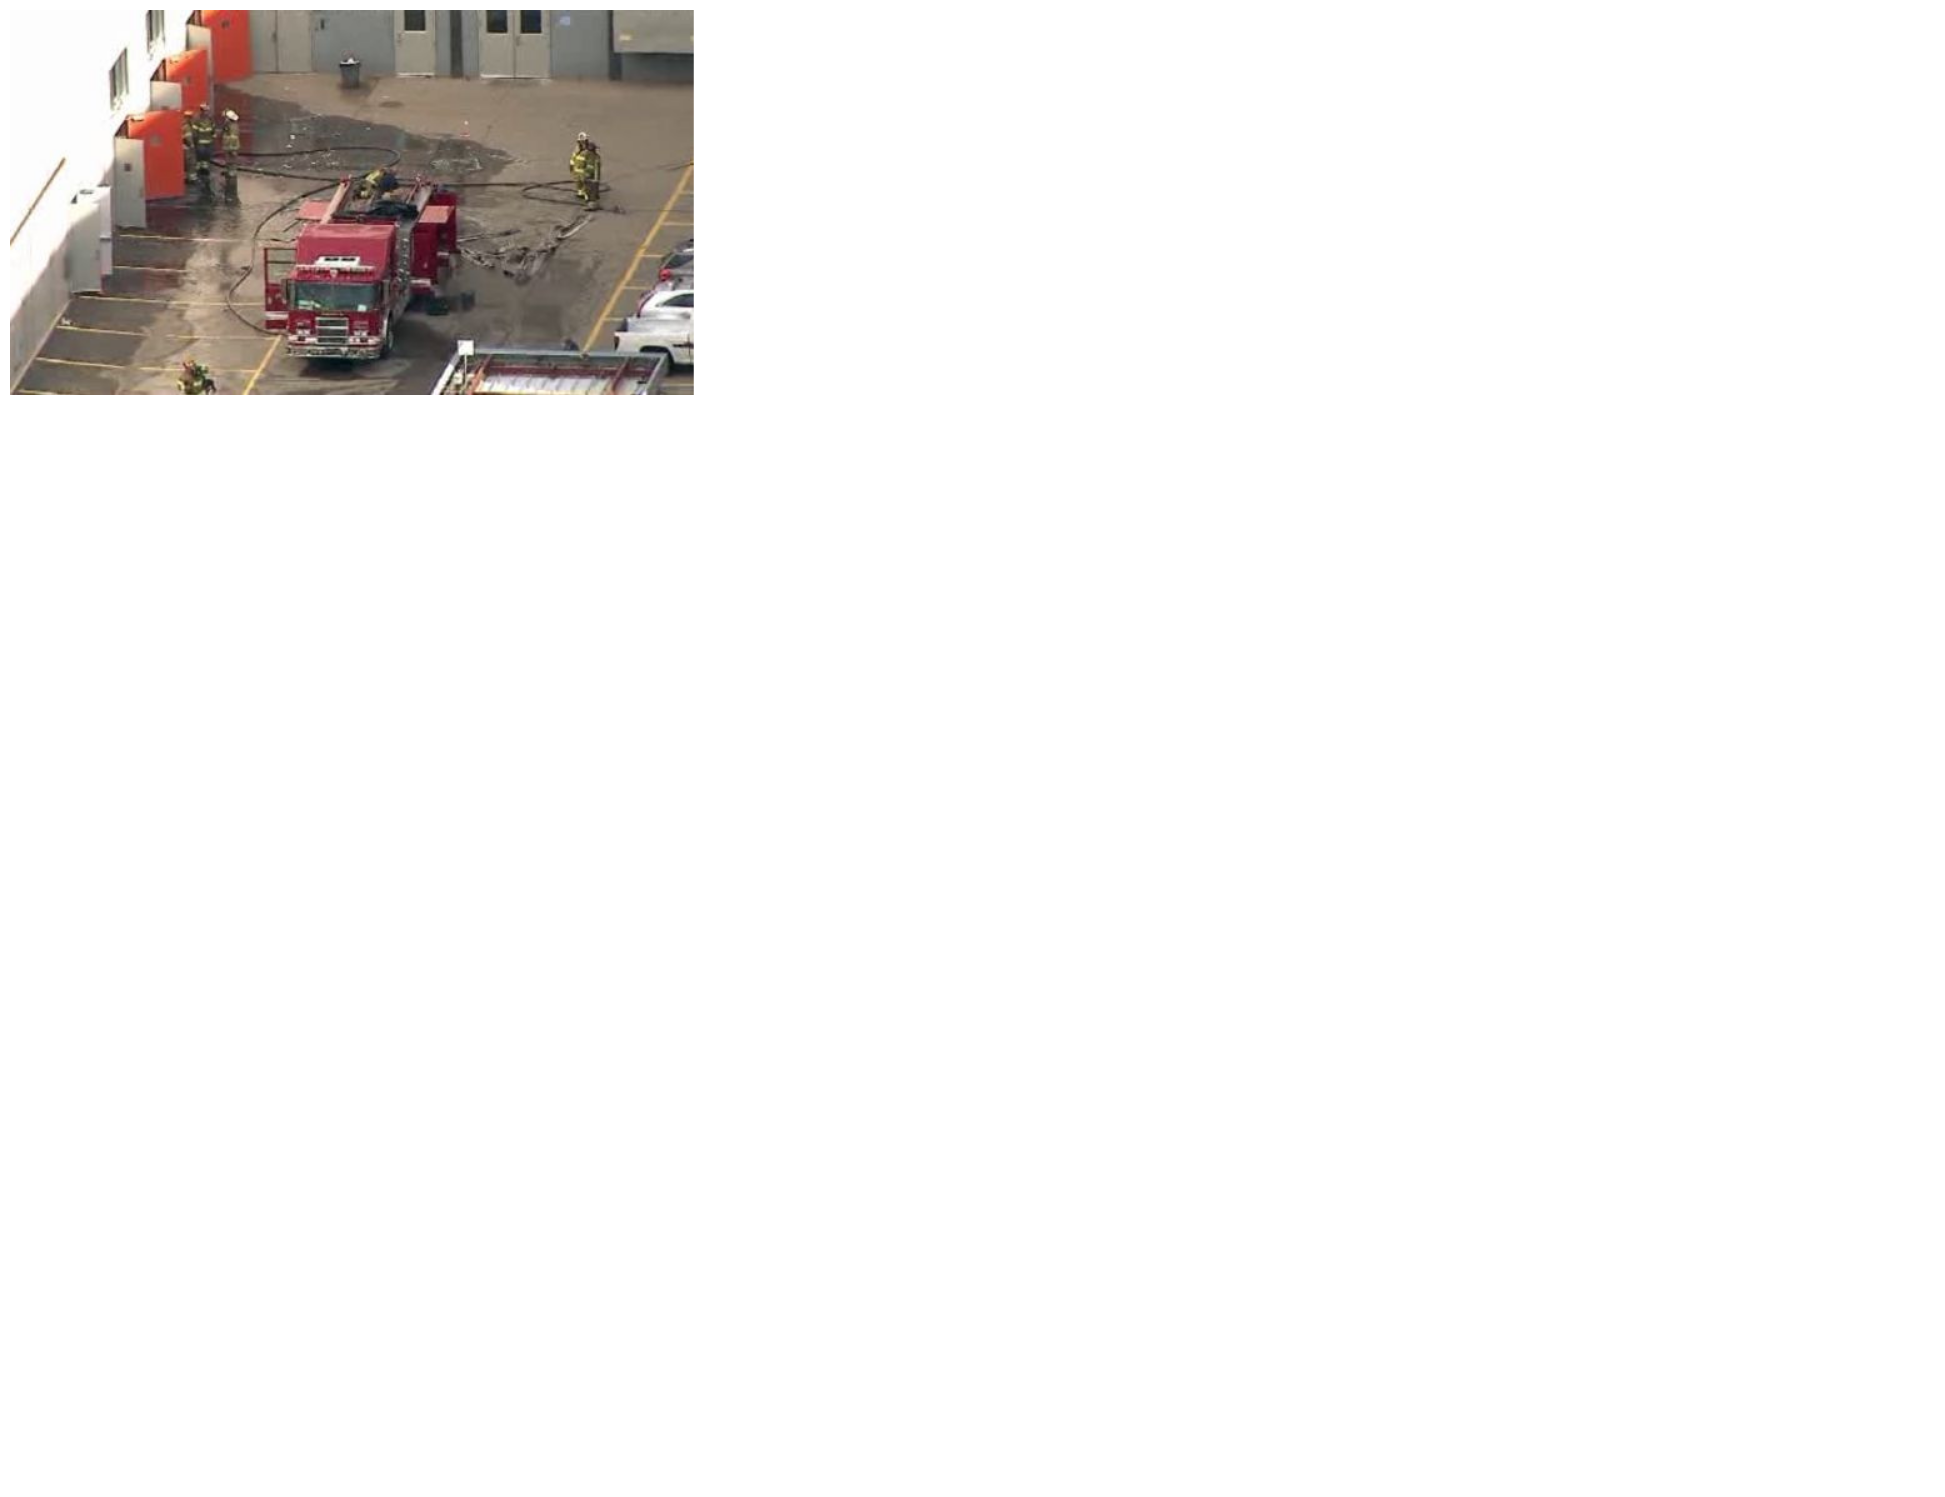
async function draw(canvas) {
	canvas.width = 1945;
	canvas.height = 1497;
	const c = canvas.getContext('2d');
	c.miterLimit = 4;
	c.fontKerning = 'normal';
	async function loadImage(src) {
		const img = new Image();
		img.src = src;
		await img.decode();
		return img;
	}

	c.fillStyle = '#fff';
	c.fillRect(0, 0, 1945, 1497);
	c.drawImage(await loadImage('img1.png'), 10, 10, 684, 385);
}

draw(document.querySelector('canvas'));
